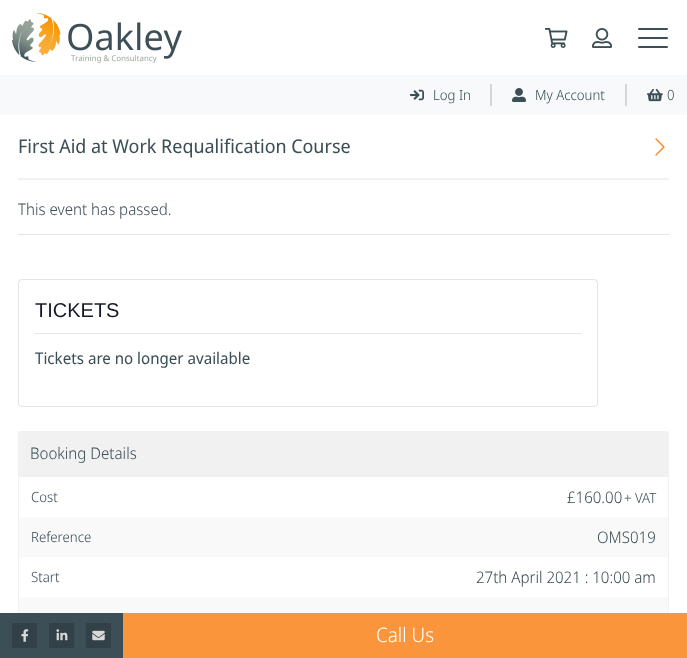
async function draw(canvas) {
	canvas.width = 687;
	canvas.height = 658;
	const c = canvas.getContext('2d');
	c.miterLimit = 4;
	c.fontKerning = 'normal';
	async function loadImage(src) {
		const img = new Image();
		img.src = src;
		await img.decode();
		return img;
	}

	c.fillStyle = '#fff';
	c.fillRect(0, 0, 687, 658);
	c.drawImage(await loadImage('img1.png'), 12, 13, 170, 50);
	c.drawImage(await loadImage('img2.png'), 545, 28, 23, 20);
	c.drawImage(await loadImage('img3.png'), 592, 28, 20, 20);
	c.fillStyle = '#3d4f56';
	c.beginPath();
	c.roundRect(638, 37, 30, 2, 1);
	c.fill();
	c.beginPath();
	c.roundRect(638, 28, 30, 2, 1);
	c.fill();
	c.beginPath();
	c.roundRect(638, 46, 30, 2, 1);
	c.fill();
	c.fillStyle = '#f8f9fa';
	c.fillRect(0, 75, 687, 40);
	c.drawImage(await loadImage('img4.png'), 410, 89, 14, 12);
	c.font = '300 14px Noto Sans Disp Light';
	c.fillStyle = '#3d4f56';
	c.fillText('Log In', 433, 100);
	c.fillStyle = '#d3d7d9';
	c.fillRect(490, 84, 2, 22);
	c.drawImage(await loadImage('img5.png'), 512, 88, 14, 14);
	c.fillStyle = '#3d4f56';
	c.fillText('My Account', 535, 100);
	c.fillStyle = '#d3d7d9';
	c.fillRect(625, 84, 2, 22);
	c.drawImage(await loadImage('img6.png'), 647, 88, 16, 14);
	c.fillStyle = '#3d4f56';
	c.fillText('0', 667, 100);
	c.font = '19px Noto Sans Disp';
	c.fillText('First Aid at Work Requalification Course', 18, 153);
	c.drawImage(await loadImage('img7.png'), 655, 138, 10, 18);
	for (const [x, y, w, h, color] of [
		[18, 179, 651, 1, '#f2f2f2'],
		[18, 178, 651, 1, '#f1f1f1'],
		[18, 234, 651, 1, '#e4e4e4'],
	]) {
		c.fillStyle = color;
		c.fillRect(x, y, w, h);
	}
	c.font = '300 16px Noto Sans Disp Light';
	c.fillStyle = '#3d4f56';
	c.fillText('This event has passed.', 18, 215);
	c.beginPath();
	c.roundRect(18.5, 279.5, 579, 127, 3.5);
	c.strokeStyle = '#e4e4e4';
	c.stroke();
	c.font = '20px Liberation Sans';
	c.fillStyle = '#141827';
	c.fillText('TICKETS', 35, 317);
	c.fillStyle = '#e4e4e4';
	c.fillRect(35, 333, 546, 1);
	c.font = '16px Noto Sans Disp';
	c.fillStyle = '#3d4f56';
	c.fillText('Tickets are no longer available', 35, 364);
	c.fillStyle = '#f1f1f1';
	c.beginPath();
	c.roundRect(18, 431, 651, 45, [2, 2, 0, 0]);
	c.fill();
	c.font = '300 16px Noto Sans Disp Light';
	c.fillStyle = '#3d4f56';
	c.fillText('Booking Details', 30, 459);
	for (const [x, y, w, h, color] of [
		[18, 476, 651, 1, '#f1f1f1'],
		[668, 476, 1, 137, '#f1f1f1'],
		[18, 476, 1, 137, '#f1f1f1'],
	]) {
		c.fillStyle = color;
		c.fillRect(x, y, w, h);
	}
	c.font = '300 14px Noto Sans Disp Light';
	c.fillStyle = '#3d4f56';
	c.fillText('Cost', 31, 502);
	c.font = '300 16px Noto Sans Disp Light';
	c.fillText('£160.00', 567, 503);
	c.font = '300 14px Noto Sans Disp Light';
	c.fillText('+ VAT', 624, 503);
	c.fillStyle = '#f9f9f9';
	c.fillRect(19, 517, 649, 40);
	c.fillStyle = '#3d4f56';
	c.fillText('Reference', 31, 542);
	c.font = '300 16px Noto Sans Disp Light';
	c.fillText('OMS019', 597, 543);
	c.font = '300 14px Noto Sans Disp Light';
	c.fillText('Start', 31, 582);
	c.font = '300 16px Noto Sans Disp Light';
	c.fillText('27th April 2021 : 10:00 am', 476, 583);
	for (const [x, y, w, h, color] of [
		[19, 597, 649, 16, '#f9f9f9'],
		[0, 613, 123, 45, '#3d4f56'],
		[12, 623, 25, 25, '#324147'],
	]) {
		c.fillStyle = color;
		c.fillRect(x, y, w, h);
	}
	c.drawImage(await loadImage('img8.png'), 21, 629, 8, 13);
	c.fillRect(49, 623, 25, 25);
	c.drawImage(await loadImage('img9.png'), 56, 629, 12, 12);
	c.fillRect(86, 623, 25, 25);
	c.drawImage(await loadImage('img10.png'), 92, 630, 13, 11);
	c.fillStyle = '#fb953b';
	c.fillRect(123, 613, 564, 45);
	c.font = '300 20px Noto Sans Disp Light';
	c.fillStyle = '#fff';
	c.fillText('Call Us', 376, 642);
}

draw(document.querySelector('canvas'));
